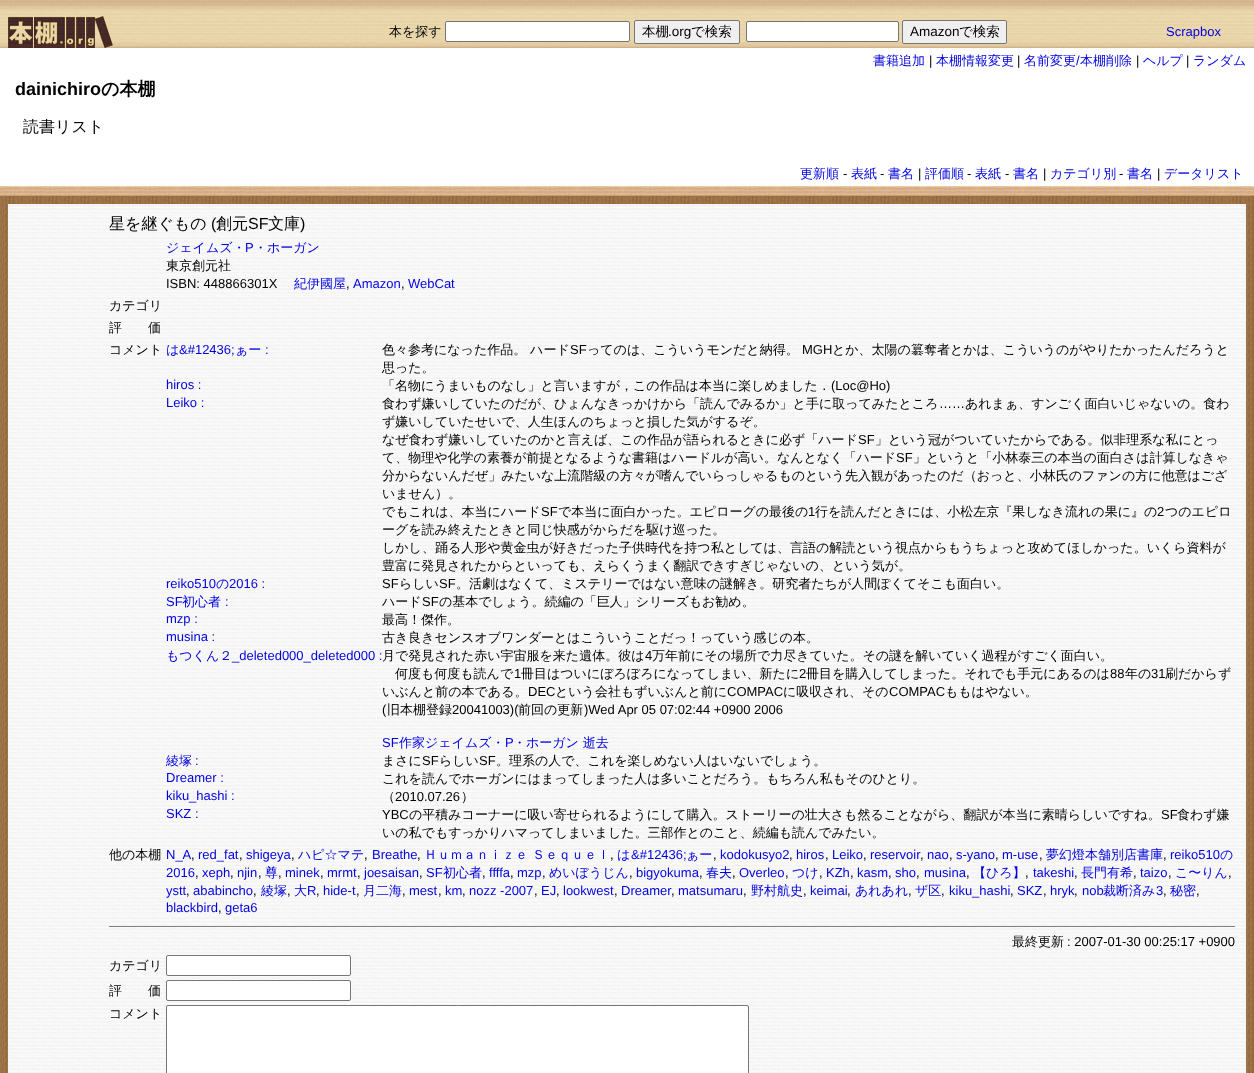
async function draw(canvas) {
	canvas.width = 1254;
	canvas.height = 1073;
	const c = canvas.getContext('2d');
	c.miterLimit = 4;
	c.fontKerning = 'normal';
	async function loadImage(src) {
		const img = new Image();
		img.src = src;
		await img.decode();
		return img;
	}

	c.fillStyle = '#fff';
	c.fillRect(0, 0, 1254, 1073);
	c.drawImage(await loadImage('img1.png'), 0, 0, 1254, 48);
	c.font = '500 13px WenQuanYi Zen Hei';
	c.fillStyle = '#000';
	c.fillText('本を探す', 389, 36);
	c.fillStyle = '#fff';
	c.beginPath();
	c.roundRect(445.5, 21.5, 184, 20, 1.5);
	c.fill();
	c.strokeStyle = '#767676';
	c.stroke();
	c.fillStyle = '#efefef';
	c.beginPath();
	c.roundRect(634.5, 20.5, 105, 23, 1.5);
	c.fill();
	c.stroke();
	c.font = '500 13.5px WenQuanYi Zen Hei';
	c.fillStyle = '#000';
	c.fillText('本棚', 642, 36);
	c.font = '13.5px Liberation Sans';
	c.fillText('.org', 668, 36);
	c.font = '500 13.5px WenQuanYi Zen Hei';
	c.fillText('で検索', 691, 36);
	c.fillStyle = '#fff';
	c.beginPath();
	c.roundRect(746.5, 21.5, 152, 20, 1.5);
	c.fill();
	c.stroke();
	c.fillStyle = '#efefef';
	c.beginPath();
	c.roundRect(902.5, 20.5, 104, 23, 1.5);
	c.fill();
	c.stroke();
	c.font = '13.5px Liberation Sans';
	c.fillStyle = '#000';
	c.fillText('Amazon', 910, 36);
	c.font = '500 13.5px WenQuanYi Zen Hei';
	c.fillText('で検索', 959, 36);
	c.font = '13px Liberation Sans';
	c.fillStyle = '#0000e0';
	c.fillText('Scrapbox', 1166, 36);
	c.font = '500 13px WenQuanYi Zen Hei';
	c.fillText('書籍追加', 873, 65);
	c.font = '13px Liberation Sans';
	c.fillStyle = '#000';
	c.fillText('|', 929, 65);
	c.font = '500 13px WenQuanYi Zen Hei';
	c.fillStyle = '#0000e0';
	c.fillText('本棚情報変更', 936, 65);
	c.font = '13px Liberation Sans';
	c.fillStyle = '#000';
	c.fillText('|', 1017, 65);
	c.font = '500 13px WenQuanYi Zen Hei';
	c.fillStyle = '#0000e0';
	c.fillText('名前変更', 1024, 65);
	c.font = '13px Liberation Sans';
	c.fillText('/', 1076, 65);
	c.font = '500 13px WenQuanYi Zen Hei';
	c.fillText('本棚削除', 1080, 65);
	c.font = '13px Liberation Sans';
	c.fillStyle = '#000';
	c.fillText('|', 1136, 65);
	c.font = '500 13px WenQuanYi Zen Hei';
	c.fillStyle = '#0000e0';
	c.fillText('ヘルプ', 1143, 65);
	c.font = '13px Liberation Sans';
	c.fillStyle = '#000';
	c.fillText('|', 1186, 65);
	c.font = '500 13px WenQuanYi Zen Hei';
	c.fillStyle = '#0000e0';
	c.fillText('ランダム', 1193, 65);
	c.font = 'bold 18px Liberation Sans';
	c.fillStyle = '#000';
	c.fillText('dainichiro', 15, 95);
	c.font = 'bold 18px WenQuanYi Zen Hei';
	c.fillText('の本棚', 101, 95);
	c.font = '500 16px WenQuanYi Zen Hei';
	c.fillText('読書リスト', 23, 132);
	c.font = '500 13px WenQuanYi Zen Hei';
	c.fillStyle = '#0000e0';
	c.fillText('更新順', 800, 178);
	c.font = '13px Liberation Sans';
	c.fillStyle = '#000';
	c.fillText('-', 843, 178);
	c.font = '500 13px WenQuanYi Zen Hei';
	c.fillStyle = '#0000e0';
	c.fillText('表紙', 851, 178);
	c.font = '13px Liberation Sans';
	c.fillStyle = '#000';
	c.fillText('-', 880, 178);
	c.font = '500 13px WenQuanYi Zen Hei';
	c.fillStyle = '#0000e0';
	c.fillText('書名', 888, 178);
	c.font = '13px Liberation Sans';
	c.fillStyle = '#000';
	c.fillText('|', 918, 178);
	c.font = '500 13px WenQuanYi Zen Hei';
	c.fillStyle = '#0000e0';
	c.fillText('評価順', 925, 178);
	c.font = '13px Liberation Sans';
	c.fillStyle = '#000';
	c.fillText('-', 967, 178);
	c.font = '500 13px WenQuanYi Zen Hei';
	c.fillStyle = '#0000e0';
	c.fillText('表紙', 975, 178);
	c.font = '13px Liberation Sans';
	c.fillStyle = '#000';
	c.fillText('-', 1005, 178);
	c.font = '500 13px WenQuanYi Zen Hei';
	c.fillStyle = '#0000e0';
	c.fillText('書名', 1013, 178);
	c.font = '13px Liberation Sans';
	c.fillStyle = '#000';
	c.fillText('|', 1043, 178);
	c.font = '500 13px WenQuanYi Zen Hei';
	c.fillStyle = '#0000e0';
	c.fillText('カテゴリ別', 1050, 178);
	c.font = '13px Liberation Sans';
	c.fillStyle = '#000';
	c.fillText('-', 1119, 178);
	c.font = '500 13px WenQuanYi Zen Hei';
	c.fillStyle = '#0000e0';
	c.fillText('書名', 1127, 178);
	c.font = '13px Liberation Sans';
	c.fillStyle = '#000';
	c.fillText('|', 1157, 178);
	c.font = '500 13px WenQuanYi Zen Hei';
	c.fillStyle = '#0000e0';
	c.fillText('データリスト', 1164, 178);
	c.drawImage(await loadImage('img2.png'), 0, 196, 1254, 877);
	c.drawImage(await loadImage('img3.png'), 0, 186, 1254, 10);
	c.drawImage(await loadImage('img4.png'), 8, 204, 1238, 869);
	c.font = '500 16px WenQuanYi Zen Hei';
	c.fillStyle = '#000';
	c.fillText('星を継ぐもの', 109, 229);
	c.font = '16px Liberation Sans';
	c.fillText('(', 211, 229);
	c.font = '500 16px WenQuanYi Zen Hei';
	c.fillText('創元', 216, 229);
	c.font = '16px Liberation Sans';
	c.fillText('SF', 248, 229);
	c.font = '500 16px WenQuanYi Zen Hei';
	c.fillText('文庫', 268, 229);
	c.font = '16px Liberation Sans';
	c.fillText(')', 300, 229);
	c.font = '500 13px WenQuanYi Zen Hei';
	c.fillStyle = '#0000e0';
	c.fillText('ジェイムズ・', 166, 252);
	c.font = '13px Liberation Sans';
	c.fillText('P', 245, 252);
	c.font = '500 13px WenQuanYi Zen Hei';
	c.fillText('・ホーガン', 254, 252);
	c.fillStyle = '#000';
	c.fillText('東京創元社', 166, 270);
	c.font = '13px Liberation Sans';
	c.fillText('ISBN: 448866301X', 166, 288);
	c.font = '500 13px WenQuanYi Zen Hei';
	c.fillStyle = '#0000e0';
	c.fillText('紀伊國屋', 294, 288);
	c.font = '13px Liberation Sans';
	c.fillStyle = '#000';
	c.fillText(',', 346, 288);
	c.fillStyle = '#0000e0';
	c.fillText('Amazon', 353, 288);
	c.fillStyle = '#000';
	c.fillText(',', 401, 288);
	c.fillStyle = '#0000e0';
	c.fillText('WebCat', 408, 288);
	c.font = '500 13px WenQuanYi Zen Hei';
	c.fillStyle = '#000';
	for (const [text, x, y] of [
		['カテゴリ', 109, 310],
		['評　　価', 109, 332],
		['コメント', 109, 354],
	]) {
		c.fillText(text, x, y);
	}
	c.fillStyle = '#0000e0';
	c.fillText('は', 166, 354);
	c.font = '13px Liberation Sans';
	c.fillText('&#12436;', 179, 354);
	c.font = '500 13px WenQuanYi Zen Hei';
	c.fillText('ぁー', 235, 354);
	c.font = '13px Liberation Sans';
	c.fillText(':', 265, 354);
	c.font = '500 13px WenQuanYi Zen Hei';
	c.fillStyle = '#000';
	c.fillText('色々参考になった作品。 ハード', 382, 354);
	c.font = '13px Liberation Sans';
	c.fillText('SF', 570, 354);
	c.font = '500 13px WenQuanYi Zen Hei';
	c.fillText('ってのは、こういうモンだと納得。', 587, 354);
	c.font = '13px Liberation Sans';
	c.fillText('MGH', 802, 354);
	c.font = '500 13px WenQuanYi Zen Hei';
	c.fillText('とか、太陽の簒奪者とかは、こういうのがやりたかったんだろうと', 832, 354);
	c.fillText('思った。', 382, 372);
	c.font = '13px Liberation Sans';
	c.fillStyle = '#0000e0';
	c.fillText('hiros :', 166, 389);
	c.font = '500 13px WenQuanYi Zen Hei';
	c.fillStyle = '#000';
	c.fillText('「名物にうまいものなし」と言いますが，この作品は本当に楽しめました．', 382, 390);
	c.font = '13px Liberation Sans';
	c.fillText('(Loc@Ho)', 831, 390);
	c.fillStyle = '#0000e0';
	c.fillText('Leiko :', 166, 407);
	c.font = '500 13px WenQuanYi Zen Hei';
	c.fillStyle = '#000';
	c.fillText('食わず嫌いしていたのだが、ひょんなきっかけから「読んでみるか」と手に取ってみたところ', 382, 408);
	c.font = '13px Liberation Sans';
	c.fillText('……', 939, 408);
	c.font = '500 13px WenQuanYi Zen Hei';
	for (const [text, x, y] of [
		['あれまぁ、すンごく面白いじゃないの。食わ', 965, 408],
		['ず嫌いしていたせいで、人生ほんのちょっと損した気がするぞ。', 382, 426],
		['なぜ食わず嫌いしていたのかと言えば、この作品が語られるときに必ず「ハード', 382, 444],
	]) {
		c.fillText(text, x, y);
	}
	c.font = '13px Liberation Sans';
	c.fillText('SF', 858, 444);
	c.font = '500 13px WenQuanYi Zen Hei';
	c.fillText('」という冠がついていたからである。似非理系な私にとっ', 875, 444);
	c.fillText('て、物理や化学の素養が前提となるような書籍はハードルが高い。なんとなく「ハード', 382, 462);
	c.font = '13px Liberation Sans';
	c.fillText('SF', 896, 462);
	c.font = '500 13px WenQuanYi Zen Hei';
	for (const [text, x, y] of [
		['」というと「小林泰三の本当の面白さは計算しなきゃ', 913, 462],
		['分からないんだぜ」みたいな上流階級の方々が嗜んでいらっしゃるものという先入観があったのだ（おっと、小林氏のファンの方に他意はござ', 382, 480],
		['いません）。', 382, 498],
		['でもこれは、本当にハード', 382, 516],
	]) {
		c.fillText(text, x, y);
	}
	c.font = '13px Liberation Sans';
	c.fillText('SF', 541, 516);
	c.font = '500 13px WenQuanYi Zen Hei';
	c.fillText('で本当に面白かった。エピローグの最後の', 558, 516);
	c.font = '13px Liberation Sans';
	c.fillText('1', 808, 516);
	c.font = '500 13px WenQuanYi Zen Hei';
	c.fillText('行を読んだときには、小松左京『果しなき流れの果に』の', 815, 516);
	c.font = '13px Liberation Sans';
	c.fillText('2', 1157, 516);
	c.font = '500 13px WenQuanYi Zen Hei';
	for (const [text, x, y] of [
		['つのエピロ', 1165, 516],
		['ーグを読み終えたときと同じ快感がからだを駆け巡った。', 382, 534],
		['しかし、踊る人形や黄金虫が好きだった子供時代を持つ私としては、言語の解読という視点からもうちょっと攻めてほしかった。いくら資料が', 382, 552],
		['豊富に発見されたからといっても、えらくうまく翻訳できすぎじゃないの、という気が。', 382, 570],
	]) {
		c.fillText(text, x, y);
	}
	c.font = '13px Liberation Sans';
	c.fillStyle = '#0000e0';
	c.fillText('reiko510', 166, 588);
	c.font = '500 13px WenQuanYi Zen Hei';
	c.fillText('の', 216, 588);
	c.font = '13px Liberation Sans';
	c.fillText('2016 :', 229, 588);
	c.fillStyle = '#000';
	c.fillText('SF', 382, 588);
	c.font = '500 13px WenQuanYi Zen Hei';
	c.fillText('らしい', 399, 588);
	c.font = '13px Liberation Sans';
	c.fillText('SF', 439, 588);
	c.font = '500 13px WenQuanYi Zen Hei';
	c.fillText('。活劇はなくて、ミステリーではない意味の謎解き。研究者たちが人間ぽくてそこも面白い。', 456, 588);
	c.font = '13px Liberation Sans';
	c.fillStyle = '#0000e0';
	c.fillText('SF', 166, 606);
	c.font = '500 13px WenQuanYi Zen Hei';
	c.fillText('初心者', 182, 606);
	c.font = '13px Liberation Sans';
	c.fillText(':', 225, 606);
	c.font = '500 13px WenQuanYi Zen Hei';
	c.fillStyle = '#000';
	c.fillText('ハード', 382, 606);
	c.font = '13px Liberation Sans';
	c.fillText('SF', 422, 606);
	c.font = '500 13px WenQuanYi Zen Hei';
	c.fillText('の基本でしょう。続編の「巨人」シリーズもお勧め。', 439, 606);
	c.font = '13px Liberation Sans';
	c.fillStyle = '#0000e0';
	c.fillText('mzp :', 166, 623);
	c.font = '500 13px WenQuanYi Zen Hei';
	c.fillStyle = '#000';
	c.fillText('最高！傑作。', 382, 624);
	c.font = '13px Liberation Sans';
	c.fillStyle = '#0000e0';
	c.fillText('musina :', 166, 641);
	c.font = '500 13px WenQuanYi Zen Hei';
	c.fillStyle = '#000';
	c.fillText('古き良きセンスオブワンダーとはこういうことだっ！っていう感じの本。', 382, 642);
	c.fillStyle = '#0000e0';
	c.fillText('もつくん２', 166, 660);
	c.font = '13px Liberation Sans';
	c.fillText('_deleted000_deleted000 :', 232, 660);
	c.font = '500 13px WenQuanYi Zen Hei';
	c.fillStyle = '#000';
	c.fillText('月で発見された赤い宇宙服を来た遺体。彼は', 382, 660);
	c.font = '13px Liberation Sans';
	c.fillText('4', 645, 660);
	c.font = '500 13px WenQuanYi Zen Hei';
	c.fillText('万年前にその場所で力尽きていた。その謎を解いていく過程がすごく面白い。', 652, 660);
	c.fillText('何度も何度も読んで', 395, 678);
	c.font = '13px Liberation Sans';
	c.fillText('1', 514, 678);
	c.font = '500 13px WenQuanYi Zen Hei';
	c.fillText('冊目はついにぼろぼろになってしまい、新たに', 521, 678);
	c.font = '13px Liberation Sans';
	c.fillText('2', 799, 678);
	c.font = '500 13px WenQuanYi Zen Hei';
	c.fillText('冊目を購入してしまった。それでも手元にあるのは', 806, 678);
	c.font = '13px Liberation Sans';
	c.fillText('88', 1110, 678);
	c.font = '500 13px WenQuanYi Zen Hei';
	c.fillText('年の', 1125, 678);
	c.font = '13px Liberation Sans';
	c.fillText('31', 1151, 678);
	c.font = '500 13px WenQuanYi Zen Hei';
	c.fillText('刷だからず', 1165, 678);
	c.fillText('いぶんと前の本である。', 382, 696);
	c.font = '13px Liberation Sans';
	c.fillText('DEC', 528, 696);
	c.font = '500 13px WenQuanYi Zen Hei';
	c.fillText('という会社もずいぶんと前に', 555, 696);
	c.font = '13px Liberation Sans';
	c.fillText('COMPAC', 727, 696);
	c.font = '500 13px WenQuanYi Zen Hei';
	c.fillText('に吸収され、その', 783, 696);
	c.font = '13px Liberation Sans';
	c.fillText('COMPAC', 889, 696);
	c.font = '500 13px WenQuanYi Zen Hei';
	c.fillText('ももはやない。', 945, 696);
	c.font = '13px Liberation Sans';
	c.fillText('(', 382, 714);
	c.font = '500 13px WenQuanYi Zen Hei';
	c.fillText('旧本棚登録', 387, 714);
	c.font = '13px Liberation Sans';
	c.fillText('20041003)(', 452, 714);
	c.font = '500 13px WenQuanYi Zen Hei';
	c.fillText('前回の更新', 518, 714);
	c.font = '13px Liberation Sans';
	c.fillText(')Wed Apr 05 07:02:44 +0900 2006', 584, 714);
	c.fillStyle = '#0000e0';
	c.fillText('SF', 382, 747);
	c.font = '500 13px WenQuanYi Zen Hei';
	c.fillText('作家ジェイムズ・', 399, 747);
	c.font = '13px Liberation Sans';
	c.fillText('P', 505, 747);
	c.font = '500 13px WenQuanYi Zen Hei';
	c.fillText('・ホーガン 逝去', 513, 747);
	c.fillText('綾塚', 166, 765);
	c.font = '13px Liberation Sans';
	c.fillText(':', 195, 765);
	c.font = '500 13px WenQuanYi Zen Hei';
	c.fillStyle = '#000';
	c.fillText('まさに', 382, 765);
	c.font = '13px Liberation Sans';
	c.fillText('SF', 422, 765);
	c.font = '500 13px WenQuanYi Zen Hei';
	c.fillText('らしい', 439, 765);
	c.font = '13px Liberation Sans';
	c.fillText('SF', 479, 765);
	c.font = '500 13px WenQuanYi Zen Hei';
	c.fillText('。理系の人で、これを楽しめない人はいないでしょう。', 496, 765);
	c.font = '13px Liberation Sans';
	c.fillStyle = '#0000e0';
	c.fillText('Dreamer :', 166, 782);
	c.font = '500 13px WenQuanYi Zen Hei';
	c.fillStyle = '#000';
	c.fillText('これを読んでホーガンにはまってしまった人は多いことだろう。もちろん私もそのひとり。', 382, 783);
	c.font = '13px Liberation Sans';
	c.fillStyle = '#0000e0';
	c.fillText('kiku_hashi :', 166, 800);
	c.font = '500 13px WenQuanYi Zen Hei';
	c.fillStyle = '#000';
	c.fillText('（', 382, 801);
	c.font = '13px Liberation Sans';
	c.fillText('2010.07.26', 395, 801);
	c.font = '500 13px WenQuanYi Zen Hei';
	c.fillText('）', 461, 801);
	c.font = '13px Liberation Sans';
	c.fillStyle = '#0000e0';
	c.fillText('SKZ :', 166, 818);
	c.fillStyle = '#000';
	c.fillText('YBC', 382, 819);
	c.font = '500 13px WenQuanYi Zen Hei';
	c.fillText('の平積みコーナーに吸い寄せられるようにして購入。ストーリーの壮大さも然ることながら、翻訳が本当に素晴らしいですね。', 409, 819);
	c.font = '13px Liberation Sans';
	c.fillText('SF', 1161, 819);
	c.font = '500 13px WenQuanYi Zen Hei';
	for (const [text, x, y] of [
		['食わず嫌', 1177, 819],
		['いの私でもすっかりハマってしまいました。三部作とのこと、続編も読んでみたい。', 382, 837],
		['他の本棚', 109, 859],
	]) {
		c.fillText(text, x, y);
	}
	c.font = '13px Liberation Sans';
	c.fillStyle = '#0000e0';
	c.fillText('N_A', 166, 859);
	c.fillStyle = '#000';
	c.fillText(',', 191, 859);
	c.fillStyle = '#0000e0';
	c.fillText('red_fat', 198, 859);
	c.fillStyle = '#000';
	c.fillText(',', 239, 859);
	c.fillStyle = '#0000e0';
	c.fillText('shigeya', 246, 859);
	c.fillStyle = '#000';
	c.fillText(',', 291, 859);
	c.font = '500 13px WenQuanYi Zen Hei';
	c.fillStyle = '#0000e0';
	c.fillText('ハピ☆マテ', 298, 859);
	c.font = '13px Liberation Sans';
	c.fillStyle = '#000';
	c.fillText(',', 364, 859);
	c.fillStyle = '#0000e0';
	c.fillText('Breathe', 372, 859);
	c.fillStyle = '#000';
	c.fillText(',', 417, 859);
	c.font = '500 13px WenQuanYi Zen Hei';
	c.fillStyle = '#0000e0';
	c.fillText('Ｈｕｍａｎｉｚｅ Ｓｅｑｕｅｌ', 424, 859);
	c.font = '13px Liberation Sans';
	c.fillStyle = '#000';
	c.fillText(',', 610, 859);
	c.font = '500 13px WenQuanYi Zen Hei';
	c.fillStyle = '#0000e0';
	c.fillText('は', 617, 859);
	c.font = '13px Liberation Sans';
	c.fillText('&#12436;', 631, 859);
	c.font = '500 13px WenQuanYi Zen Hei';
	c.fillText('ぁー', 686, 859);
	c.font = '13px Liberation Sans';
	c.fillStyle = '#000';
	c.fillText(',', 713, 859);
	c.fillStyle = '#0000e0';
	c.fillText('kodokusyo2', 720, 859);
	c.fillStyle = '#000';
	c.fillText(',', 789, 859);
	c.fillStyle = '#0000e0';
	c.fillText('hiros', 796, 859);
	c.fillStyle = '#000';
	c.fillText(',', 825, 859);
	c.fillStyle = '#0000e0';
	c.fillText('Leiko', 832, 859);
	c.fillStyle = '#000';
	c.fillText(',', 863, 859);
	c.fillStyle = '#0000e0';
	c.fillText('reservoir', 870, 859);
	c.fillStyle = '#000';
	c.fillText(',', 920, 859);
	c.fillStyle = '#0000e0';
	c.fillText('nao', 927, 859);
	c.fillStyle = '#000';
	c.fillText(',', 949, 859);
	c.fillStyle = '#0000e0';
	c.fillText('s-yano', 956, 859);
	c.fillStyle = '#000';
	c.fillText(',', 995, 859);
	c.fillStyle = '#0000e0';
	c.fillText('m-use', 1002, 859);
	c.fillStyle = '#000';
	c.fillText(',', 1039, 859);
	c.font = '500 13px WenQuanYi Zen Hei';
	c.fillStyle = '#0000e0';
	c.fillText('夢幻燈本舗別店書庫', 1046, 859);
	c.font = '13px Liberation Sans';
	c.fillStyle = '#000';
	c.fillText(',', 1163, 859);
	c.fillStyle = '#0000e0';
	c.fillText('reiko510', 1170, 859);
	c.font = '500 13px WenQuanYi Zen Hei';
	c.fillText('の', 1220, 859);
	c.font = '13px Liberation Sans';
	c.fillText('2016', 166, 877);
	c.fillStyle = '#000';
	c.fillText(',', 195, 877);
	c.fillStyle = '#0000e0';
	c.fillText('xeph', 202, 877);
	c.fillStyle = '#000';
	c.fillText(',', 230, 877);
	c.fillStyle = '#0000e0';
	c.fillText('njin', 237, 877);
	c.fillStyle = '#000';
	c.fillText(',', 258, 877);
	c.font = '500 13px WenQuanYi Zen Hei';
	c.fillStyle = '#0000e0';
	c.fillText('尊', 265, 877);
	c.font = '13px Liberation Sans';
	c.fillStyle = '#000';
	c.fillText(',', 278, 877);
	c.fillStyle = '#0000e0';
	c.fillText('minek', 285, 877);
	c.fillStyle = '#000';
	c.fillText(',', 320, 877);
	c.fillStyle = '#0000e0';
	c.fillText('mrmt', 327, 877);
	c.fillStyle = '#000';
	c.fillText(',', 357, 877);
	c.fillStyle = '#0000e0';
	c.fillText('joesaisan', 364, 877);
	c.fillStyle = '#000';
	c.fillText(',', 419, 877);
	c.fillStyle = '#0000e0';
	c.fillText('SF', 426, 877);
	c.font = '500 13px WenQuanYi Zen Hei';
	c.fillText('初心者', 443, 877);
	c.font = '13px Liberation Sans';
	c.fillStyle = '#000';
	c.fillText(',', 482, 877);
	c.fillStyle = '#0000e0';
	c.fillText('ffffa', 489, 877);
	c.fillStyle = '#000';
	c.fillText(',', 510, 877);
	c.fillStyle = '#0000e0';
	c.fillText('mzp', 517, 877);
	c.fillStyle = '#000';
	c.fillText(',', 542, 877);
	c.font = '500 13px WenQuanYi Zen Hei';
	c.fillStyle = '#0000e0';
	c.fillText('めいぼうじん', 549, 877);
	c.font = '13px Liberation Sans';
	c.fillStyle = '#000';
	c.fillText(',', 629, 877);
	c.fillStyle = '#0000e0';
	c.fillText('bigyokuma', 636, 877);
	c.fillStyle = '#000';
	c.fillText(',', 699, 877);
	c.font = '500 13px WenQuanYi Zen Hei';
	c.fillStyle = '#0000e0';
	c.fillText('春夫', 706, 877);
	c.font = '13px Liberation Sans';
	c.fillStyle = '#000';
	c.fillText(',', 732, 877);
	c.fillStyle = '#0000e0';
	c.fillText('Overleo', 739, 877);
	c.fillStyle = '#000';
	c.fillText(',', 785, 877);
	c.font = '500 13px WenQuanYi Zen Hei';
	c.fillStyle = '#0000e0';
	c.fillText('つけ', 792, 877);
	c.font = '13px Liberation Sans';
	c.fillStyle = '#000';
	c.fillText(',', 819, 877);
	c.fillStyle = '#0000e0';
	c.fillText('KZh', 826, 877);
	c.fillStyle = '#000';
	c.fillText(',', 850, 877);
	c.fillStyle = '#0000e0';
	c.fillText('kasm', 857, 877);
	c.fillStyle = '#000';
	c.fillText(',', 888, 877);
	c.fillStyle = '#0000e0';
	c.fillText('sho', 895, 877);
	c.fillStyle = '#000';
	c.fillText(',', 916, 877);
	c.fillStyle = '#0000e0';
	c.fillText('musina', 924, 877);
	c.fillStyle = '#000';
	c.fillText(',', 966, 877);
	c.font = '500 13px WenQuanYi Zen Hei';
	c.fillStyle = '#0000e0';
	c.fillText('【ひろ】', 973, 877);
	c.font = '13px Liberation Sans';
	c.fillStyle = '#000';
	c.fillText(',', 1025, 877);
	c.fillStyle = '#0000e0';
	c.fillText('takeshi', 1033, 877);
	c.fillStyle = '#000';
	c.fillText(',', 1074, 877);
	c.font = '500 13px WenQuanYi Zen Hei';
	c.fillStyle = '#0000e0';
	c.fillText('長門有希', 1081, 877);
	c.font = '13px Liberation Sans';
	c.fillStyle = '#000';
	c.fillText(',', 1133, 877);
	c.fillStyle = '#0000e0';
	c.fillText('taizo', 1140, 877);
	c.fillStyle = '#000';
	c.fillText(',', 1168, 877);
	c.font = '500 13px WenQuanYi Zen Hei';
	c.fillStyle = '#0000e0';
	c.fillText('こ〜りん', 1175, 877);
	c.font = '13px Liberation Sans';
	c.fillStyle = '#000';
	c.fillText(',', 1228, 877);
	c.fillStyle = '#0000e0';
	c.fillText('ystt', 166, 895);
	c.fillStyle = '#000';
	c.fillText(',', 186, 895);
	c.fillStyle = '#0000e0';
	c.fillText('ababincho', 193, 895);
	c.fillStyle = '#000';
	c.fillText(',', 253, 895);
	c.font = '500 13px WenQuanYi Zen Hei';
	c.fillStyle = '#0000e0';
	c.fillText('綾塚', 261, 895);
	c.font = '13px Liberation Sans';
	c.fillStyle = '#000';
	c.fillText(',', 287, 895);
	c.font = '500 13px WenQuanYi Zen Hei';
	c.fillStyle = '#0000e0';
	c.fillText('大', 294, 895);
	c.font = '13px Liberation Sans';
	c.fillText('R', 307, 895);
	c.fillStyle = '#000';
	c.fillText(',', 316, 895);
	c.fillStyle = '#0000e0';
	c.fillText('hide-t', 323, 895);
	c.fillStyle = '#000';
	c.fillText(',', 356, 895);
	c.font = '500 13px WenQuanYi Zen Hei';
	c.fillStyle = '#0000e0';
	c.fillText('月二海', 363, 895);
	c.font = '13px Liberation Sans';
	c.fillStyle = '#000';
	c.fillText(',', 402, 895);
	c.fillStyle = '#0000e0';
	c.fillText('mest', 409, 895);
	c.fillStyle = '#000';
	c.fillText(',', 438, 895);
	c.fillStyle = '#0000e0';
	c.fillText('km', 445, 895);
	c.fillStyle = '#000';
	c.fillText(',', 462, 895);
	c.fillStyle = '#0000e0';
	c.fillText('nozz -2007', 469, 895);
	c.fillStyle = '#000';
	c.fillText(',', 534, 895);
	c.fillStyle = '#0000e0';
	c.fillText('EJ', 541, 895);
	c.fillStyle = '#000';
	c.fillText(',', 556, 895);
	c.fillStyle = '#0000e0';
	c.fillText('lookwest', 563, 895);
	c.fillStyle = '#000';
	c.fillText(',', 614, 895);
	c.fillStyle = '#0000e0';
	c.fillText('Dreamer', 621, 895);
	c.fillStyle = '#000';
	c.fillText(',', 671, 895);
	c.fillStyle = '#0000e0';
	c.fillText('matsumaru', 678, 895);
	c.fillStyle = '#000';
	c.fillText(',', 743, 895);
	c.font = '500 13px WenQuanYi Zen Hei';
	c.fillStyle = '#0000e0';
	c.fillText('野村航史', 751, 895);
	c.font = '13px Liberation Sans';
	c.fillStyle = '#000';
	c.fillText(',', 803, 895);
	c.fillStyle = '#0000e0';
	c.fillText('keimai', 810, 895);
	c.fillStyle = '#000';
	c.fillText(',', 847, 895);
	c.font = '500 13px WenQuanYi Zen Hei';
	c.fillStyle = '#0000e0';
	c.fillText('あれあれ', 855, 895);
	c.font = '13px Liberation Sans';
	c.fillStyle = '#000';
	c.fillText(',', 908, 895);
	c.font = '500 13px WenQuanYi Zen Hei';
	c.fillStyle = '#0000e0';
	c.fillText('ザ区', 915, 895);
	c.font = '13px Liberation Sans';
	c.fillStyle = '#000';
	c.fillText(',', 941, 895);
	c.fillStyle = '#0000e0';
	c.fillText('kiku_hashi', 949, 895);
	c.fillStyle = '#000';
	c.fillText(',', 1010, 895);
	c.fillStyle = '#0000e0';
	c.fillText('SKZ', 1017, 895);
	c.fillStyle = '#000';
	c.fillText(',', 1043, 895);
	c.fillStyle = '#0000e0';
	c.fillText('hryk', 1050, 895);
	c.fillStyle = '#000';
	c.fillText(',', 1074, 895);
	c.fillStyle = '#0000e0';
	c.fillText('nob', 1082, 895);
	c.font = '500 13px WenQuanYi Zen Hei';
	c.fillText('裁断済み', 1103, 895);
	c.font = '13px Liberation Sans';
	c.fillText('3', 1156, 895);
	c.fillStyle = '#000';
	c.fillText(',', 1163, 895);
	c.font = '500 13px WenQuanYi Zen Hei';
	c.fillStyle = '#0000e0';
	c.fillText('秘密', 1170, 895);
	c.font = '13px Liberation Sans';
	c.fillStyle = '#000';
	c.fillText(',', 1196, 895);
	c.fillStyle = '#0000e0';
	c.fillText('blackbird', 166, 912);
	c.fillStyle = '#000';
	c.fillText(',', 218, 912);
	c.fillStyle = '#0000e0';
	c.fillText('geta6', 225, 912);
	c.fillStyle = '#808080';
	c.fillRect(109, 926, 1126, 1);
	c.font = '500 13px WenQuanYi Zen Hei';
	c.fillStyle = '#000';
	c.fillText('最終更新', 1012, 946);
	c.font = '13px Liberation Sans';
	c.fillText(': 2007-01-30 00:25:17 +0900', 1067, 946);
	c.font = '500 13px WenQuanYi Zen Hei';
	c.fillText('カテゴリ', 109, 970);
	c.fillStyle = '#fff';
	c.beginPath();
	c.roundRect(166.5, 955.5, 184, 20, 1.5);
	c.fill();
	c.stroke();
	c.fillStyle = '#000';
	c.fillText('評　　価', 109, 995);
	c.fillStyle = '#fff';
	c.beginPath();
	c.roundRect(166.5, 980.5, 184, 20, 1.5);
	c.fill();
	c.stroke();
	c.fillStyle = '#000';
	c.fillText('コメント', 109, 1018);
	c.fillStyle = '#fff';
	c.beginPath();
	c.roundRect(166.5, 1005.5, 582, 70, 1.5);
	c.fill();
	c.stroke();
}

draw(document.querySelector('canvas'));
